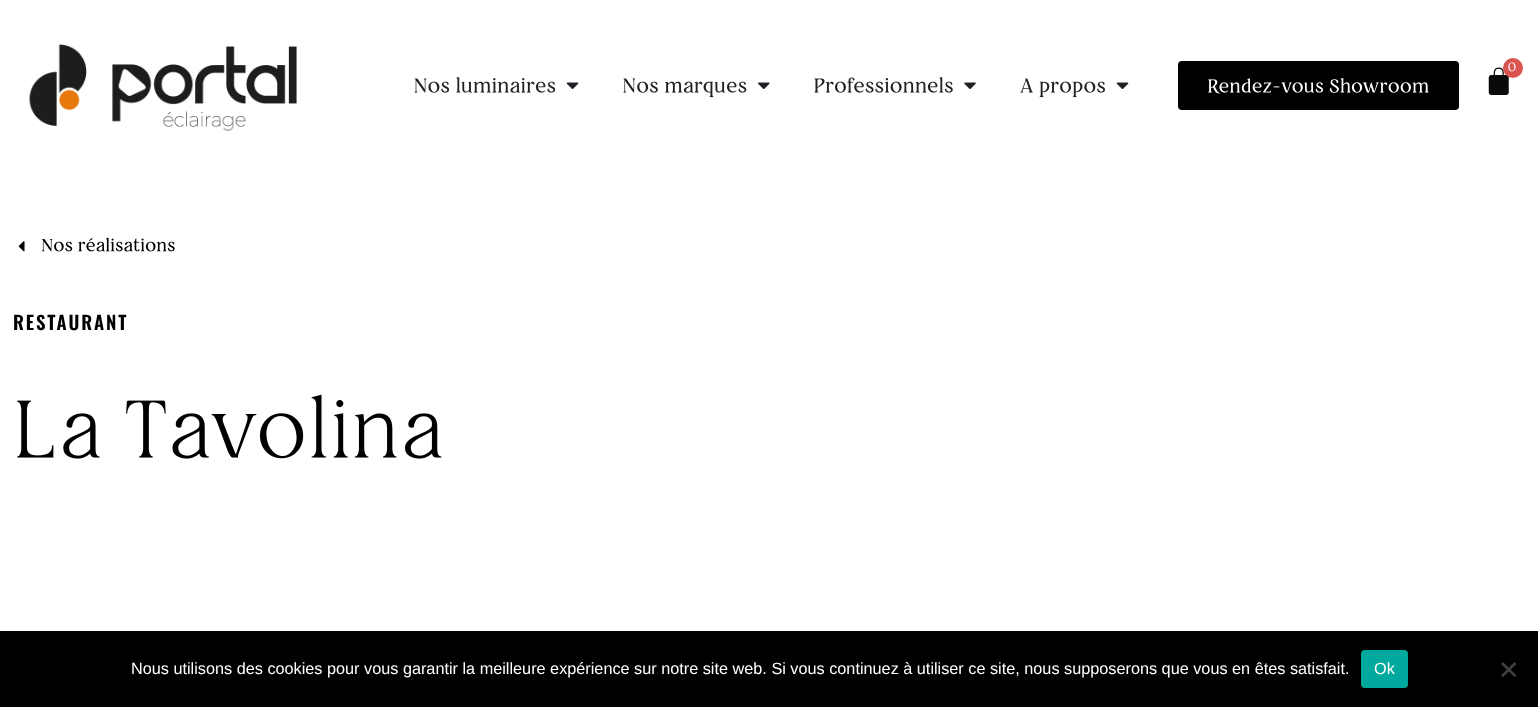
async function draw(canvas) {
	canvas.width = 1538;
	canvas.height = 707;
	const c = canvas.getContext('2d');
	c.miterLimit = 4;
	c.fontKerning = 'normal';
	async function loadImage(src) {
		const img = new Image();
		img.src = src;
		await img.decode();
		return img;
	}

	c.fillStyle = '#fff';
	c.fillRect(0, 0, 1538, 707);
	c.drawImage(await loadImage('img1.png'), 29, 44, 268, 87);
	c.drawImage(await loadImage('img2.png'), 414, 77, 142, 16);
	c.drawImage(await loadImage('img3.png'), 566, 82, 13, 7);
	c.drawImage(await loadImage('img4.png'), 623, 78, 124, 20);
	c.drawImage(await loadImage('img5.png'), 758, 82, 12, 7);
	c.drawImage(await loadImage('img6.png'), 814, 77, 139, 16);
	c.drawImage(await loadImage('img7.png'), 964, 82, 12, 7);
	c.drawImage(await loadImage('img8.png'), 1020, 78, 85, 20);
	c.drawImage(await loadImage('img3.png'), 1116, 82, 13, 7);
	c.fillStyle = '#000';
	c.beginPath();
	c.roundRect(1178, 61, 281, 49, 4);
	c.fill();
	c.drawImage(await loadImage('img9.png'), 1208, 78, 221, 16);
	c.drawImage(await loadImage('img10.png'), 1488, 67, 21, 28);
	c.fillStyle = '#d9534f';
	c.beginPath();
	c.arc(1513, 68, 10, 0, 2 * Math.PI);
	c.fill();
	c.drawImage(await loadImage('img11.png'), 1508, 62, 8, 10);
	c.drawImage(await loadImage('img12.png'), 18, 241, 7, 11);
	c.drawImage(await loadImage('img13.png'), 41, 237, 134, 15);
	c.letterSpacing = '1.9px';
	c.font = '600 18.75px Oswald';
	c.fillStyle = '#000';
	c.fillText('RESTAURANT', 13, 330);
	c.drawImage(await loadImage('img14.png'), 17, 394, 425, 65);
	c.fillRect(0, 631, 1538, 76);
	c.letterSpacing = '0px';
	c.font = '16.25px Liberation Sans';
	c.fillStyle = '#fff';
	c.fillText('Nous utilisons des cookies pour vous garantir la meilleure expérience sur notre site web. Si vous continuez à utiliser ce site, nous supposerons que vous en êtes satisfait.', 131, 674);
	c.fillStyle = '#00a99d';
	c.beginPath();
	c.roundRect(1361, 650, 47, 38, 4);
	c.fill();
	c.fillStyle = '#fff';
	c.fillText('Ok', 1374, 674);
	c.fillStyle = '#404040';
	c.beginPath();
	c.moveTo(1514.5, 662);
	c.lineTo(1516.5, 664);
	c.lineTo(1503, 677);
	c.lineTo(1501, 675.5);
	c.closePath();
	c.fill();
	c.beginPath();
	c.moveTo(1501, 664);
	c.lineTo(1503, 662);
	c.lineTo(1516.5, 675.5);
	c.lineTo(1514.5, 677);
	c.closePath();
	c.fill();
}

draw(document.querySelector('canvas'));
